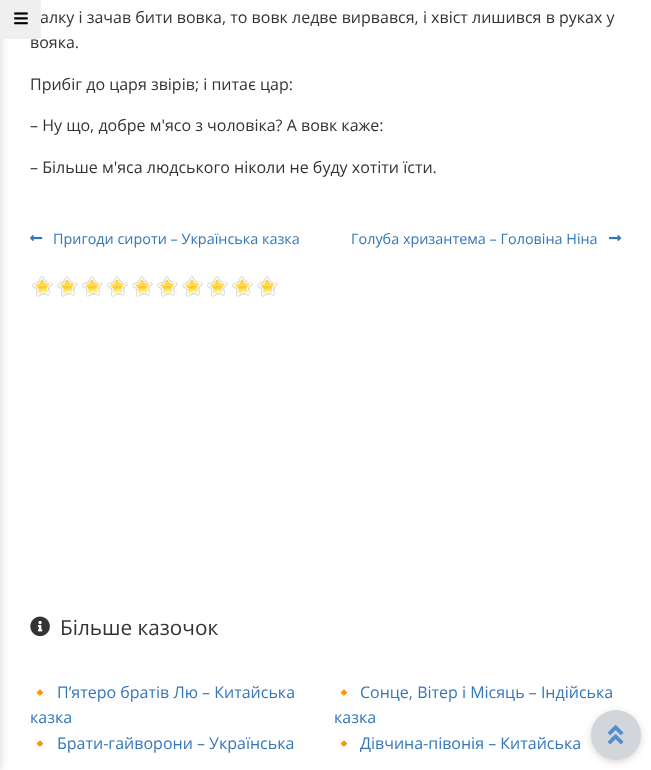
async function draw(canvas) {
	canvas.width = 651;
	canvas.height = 770;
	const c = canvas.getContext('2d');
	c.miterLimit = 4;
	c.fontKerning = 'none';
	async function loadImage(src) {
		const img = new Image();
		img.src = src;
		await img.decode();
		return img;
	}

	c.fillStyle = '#fff';
	c.fillRect(0, 0, 651, 770);
	c.fillStyle = '#0000002e';
	c.filter = 'blur(5px)';
	c.beginPath();
	c.rect(-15, 0, 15, 770);
	c.fill();
	c.filter = 'none';
	c.font = '16px Open Sans';
	c.fillStyle = '#333';
	c.fillText('алку і зачав бити вовка, то вовк ледве вирвався, і хвіст лишився в руках у', 40, 23);
	c.fillStyle = '#efefef';
	c.fillRect(0, 0, 41, 39);
	c.drawImage(await loadImage('img1.png'), 14, 12, 14, 13);
	c.fillStyle = '#333';
	for (const [text, x, y] of [
		['вояка.', 30, 48],
		['Прибіг до царя звірів; і питає цар:', 30, 90],
		['– Ну що, добре м\'ясо з чоловіка? А вовк каже:', 30, 131],
		['– Більше м\'яса людського ніколи не буду хотіти їсти.', 30, 173],
	]) {
		c.fillText(text, x, y);
	}
	c.drawImage(await loadImage('img2.png'), 30, 235, 13, 6);
	c.font = '14.4px Open Sans';
	c.fillStyle = '#3376b9';
	c.fillText('Пригоди сироти – Українська казка', 53, 244);
	c.fillText('Голуба хризантема – Головіна Ніна', 351, 244);
	c.drawImage(await loadImage('img3.png'), 609, 235, 13, 6);
	c.drawImage(await loadImage('img4.png'), 32, 283, 246, 14);
	c.drawImage(await loadImage('img5.png'), 32, 276, 245, 20);
	c.drawImage(await loadImage('img6.png'), 30, 616, 20, 21);
	c.font = '20.75px Open Sans';
	c.fillStyle = '#333';
	c.fillText('Більше казочок', 60, 635);
	c.font = '16px Noto Color Emoji';
	c.fillText('🔸', 30, 698);
	c.font = '16px Open Sans';
	c.fillStyle = '#3376b9';
	c.fillText('П’ятеро братів Лю – Китайська', 57, 698);
	c.fillText('казка', 30, 723);
	c.font = '16px Noto Color Emoji';
	c.fillStyle = '#333';
	c.fillText('🔸', 334, 698);
	c.font = '16px Open Sans';
	c.fillStyle = '#3376b9';
	c.fillText('Сонце, Вітер і Місяць – Індійська', 360, 698);
	c.fillText('казка', 334, 723);
	c.font = '16px Noto Color Emoji';
	c.fillStyle = '#333';
	c.fillText('🔸', 30, 749);
	c.font = '16px Open Sans';
	c.fillStyle = '#3376b9';
	c.fillText('Брати-гайворони – Українська', 57, 749);
	c.font = '16px Noto Color Emoji';
	c.fillStyle = '#333';
	c.fillText('🔸', 334, 749);
	c.font = '16px Open Sans';
	c.fillStyle = '#3376b9';
	c.fillText('Дівчина-півонія – Китайська', 360, 749);
	c.fillStyle = '#8a6c6c4d';
	c.filter = 'blur(3.5px)';
	c.beginPath();
	c.roundRect(591, 712, 50, 50, 25);
	c.fill();
	c.filter = 'none';
	c.fillStyle = '#d2d5d9';
	c.beginPath();
	c.arc(616, 735, 25, 0, 2 * Math.PI);
	c.fill();
	c.drawImage(await loadImage('img7.png'), 608, 725, 16, 19);
}

draw(document.querySelector('canvas'));
